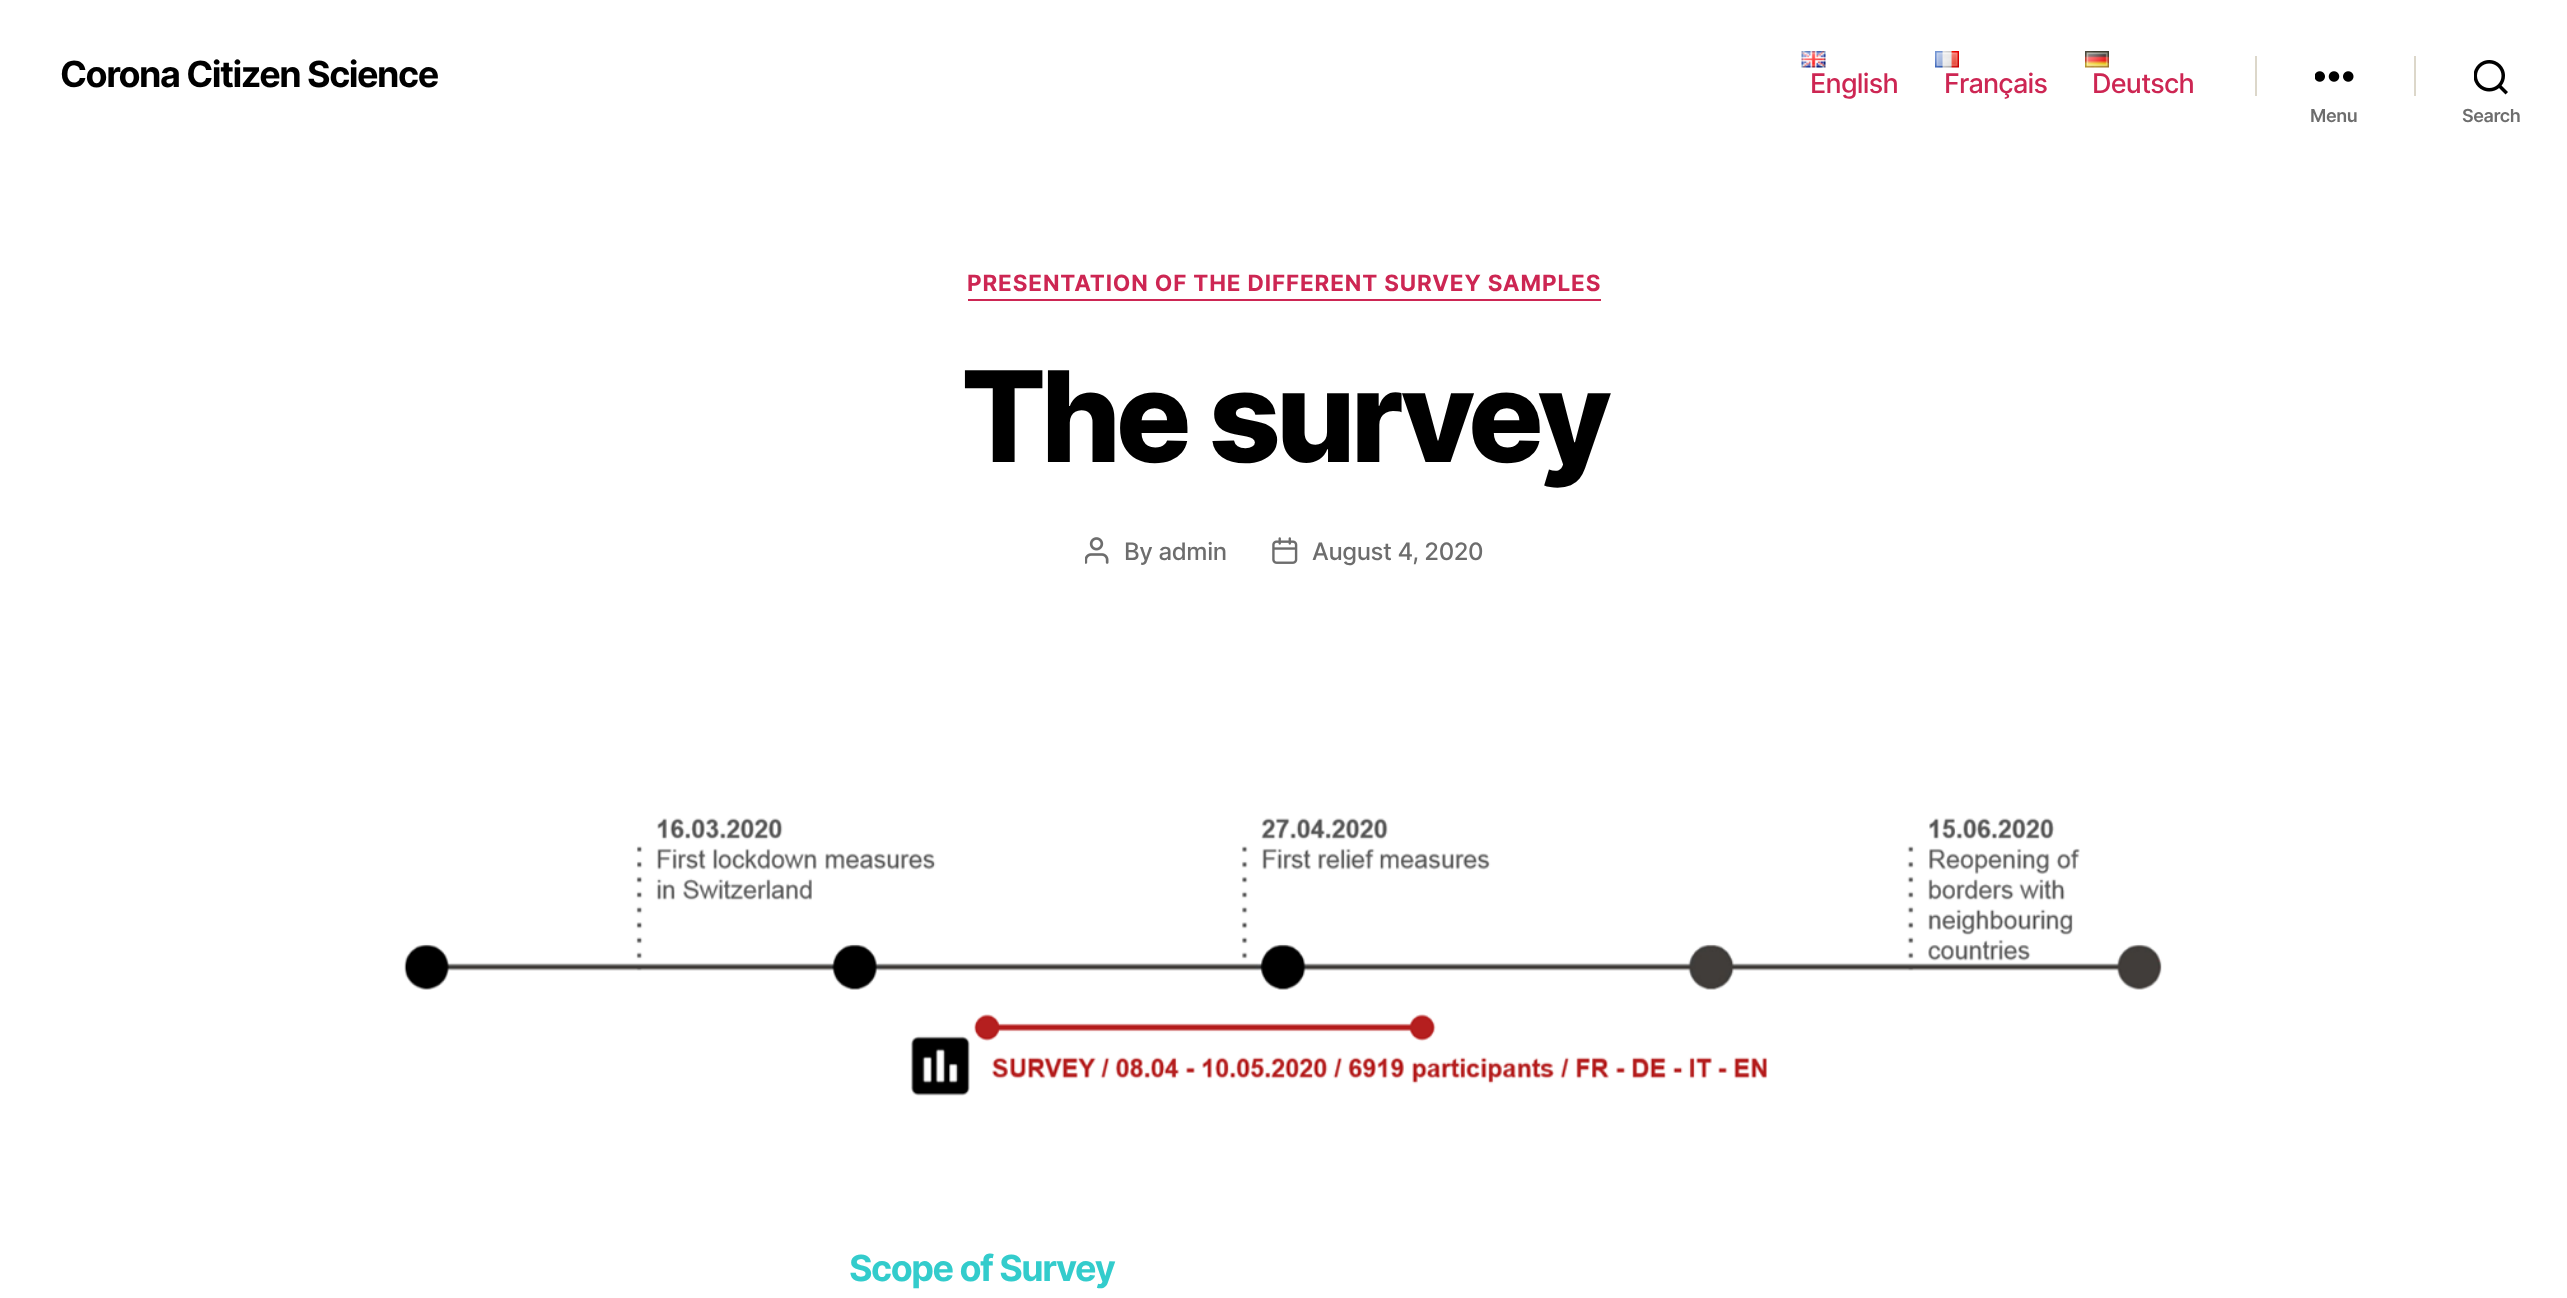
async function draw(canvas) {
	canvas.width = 2567;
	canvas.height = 1298;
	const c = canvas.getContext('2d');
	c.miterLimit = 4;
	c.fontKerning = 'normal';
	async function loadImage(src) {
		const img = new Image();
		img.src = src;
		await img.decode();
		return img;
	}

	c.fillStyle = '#fff';
	c.fillRect(0, 0, 2567, 1298);
	c.letterSpacing = '-1.5px';
	c.font = 'bold 36px Inter';
	c.fillStyle = '#000';
	c.fillText('Corona Citizen Science', 60, 87);
	c.drawImage(await loadImage('img1.png'), 1801, 51, 25, 17);
	c.letterSpacing = '-0.75px';
	c.font = '500 27px Inter';
	c.fillStyle = '#cd2653';
	c.fillText('English', 1810, 93);
	c.drawImage(await loadImage('img2.png'), 1935, 51, 24, 17);
	c.fillText('Français', 1944, 93);
	c.drawImage(await loadImage('img3.png'), 2085, 51, 24, 17);
	c.fillText('Deutsch', 2092, 93);
	c.fillStyle = '#dcd7ca';
	c.fillRect(2255, 56, 2, 40);
	c.drawImage(await loadImage('img4.png'), 2315, 71, 39, 11);
	c.letterSpacing = '-0.4px';
	c.font = '600 18px Inter';
	c.fillStyle = '#6d6d6d';
	c.fillText('Menu', 2310, 122);
	c.fillStyle = '#dcd7ca';
	c.fillRect(2414, 56, 2, 40);
	c.drawImage(await loadImage('img5.png'), 2474, 60, 34, 35);
	c.fillStyle = '#6d6d6d';
	c.fillText('Search', 2462, 122);
	c.fillStyle = '#cd2653';
	c.fillRect(968, 299, 633, 2);
	c.letterSpacing = '0.85px';
	c.font = 'bold 22.5px Inter';
	c.fillText('PRESENTATION OF THE DIFFERENT SURVEY SAMPLES', 967, 291);
	c.letterSpacing = '-5.25px';
	c.font = '800 126px Inter';
	c.fillStyle = '#000';
	c.fillText('The survey', 961, 462);
	c.drawImage(await loadImage('img6.png'), 1085, 537, 24, 27);
	c.letterSpacing = '-0.4px';
	c.font = '500 24px Inter';
	c.fillStyle = '#6d6d6d';
	c.fillText('By admin', 1124, 560);
	c.drawImage(await loadImage('img7.png'), 1272, 537, 26, 27);
	c.fillText('August 4, 2020', 1312, 560);
	c.drawImage(await loadImage('img8.png'), 404, 818, 1758, 278);
	c.letterSpacing = '-1.5px';
	c.font = 'bold 36px Inter';
	c.fillStyle = '#3cc';
	c.fillText('Scope of Survey', 849, 1281);
}

draw(document.querySelector('canvas'));
